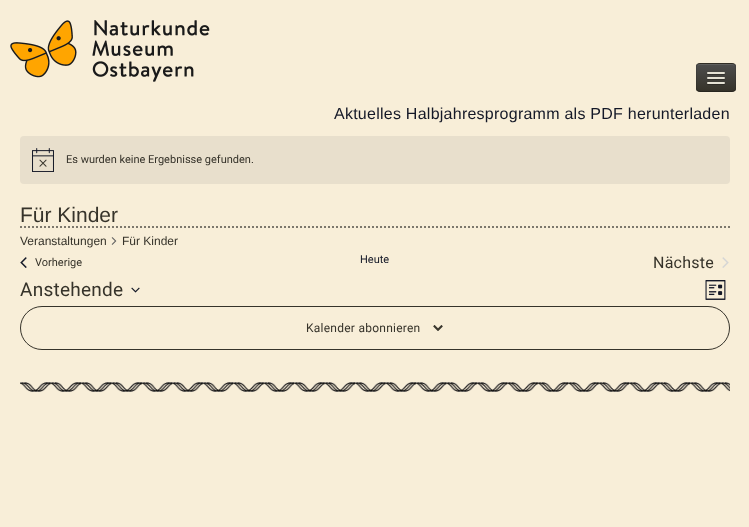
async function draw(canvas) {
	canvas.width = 749;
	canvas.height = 527;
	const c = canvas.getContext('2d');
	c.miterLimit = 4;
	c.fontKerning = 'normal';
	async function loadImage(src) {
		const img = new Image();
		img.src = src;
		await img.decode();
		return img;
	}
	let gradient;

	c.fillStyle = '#f8eed8';
	c.fillRect(0, 0, 749, 527);
	c.drawImage(await loadImage('img1.png'), 10, 20, 200, 62);
	c.fillStyle = '#f9efdb';
	c.beginPath();
	c.moveTo(696, 88);
	c.bezierCurveTo(696, 94, 701, 93, 705, 93);
	c.lineTo(727, 93);
	c.bezierCurveTo(731, 93, 736, 94, 736, 88);
	c.bezierCurveTo(736, 90, 734, 92, 732, 92);
	c.lineTo(700, 92);
	c.bezierCurveTo(698, 92, 696, 90, 696, 88);
	c.closePath();
	c.fill();
	c.fillStyle = '#36332a';
	c.beginPath();
	c.roundRect(696, 63, 40, 29, 4);
	c.fill();
	c.save();
	c.beginPath();
	c.roundRect(696, 63, 40, 29, 4);
	c.clip();
	gradient = c.createLinearGradient(716, 64, 716, 91);
	gradient.addColorStop(0, '#4d4d4d');
	gradient.addColorStop(1, '#36332a');
	c.fillStyle = gradient;
	c.fillRect(696, 64, 40, 27);
	c.restore();
	c.fillStyle = '#5f5f5e';
	c.beginPath();
	c.moveTo(700, 65);
	c.lineTo(732, 65);
	c.bezierCurveTo(734, 65, 735, 66, 735, 68);
	c.bezierCurveTo(735, 63, 731, 64, 726.5, 64);
	c.lineTo(705.5, 64);
	c.bezierCurveTo(701, 64, 697, 63, 697, 68);
	c.bezierCurveTo(697, 66, 698, 65, 700, 65);
	c.closePath();
	c.fill();
	c.beginPath();
	c.moveTo(734.5, 90.5);
	c.bezierCurveTo(734, 91, 733, 91.5, 732, 91.5);
	c.lineTo(700, 91.5);
	c.bezierCurveTo(699, 91.5, 698, 91, 697.5, 90.5);
	c.strokeStyle = '#00000040';
	c.stroke();
	c.beginPath();
	c.moveTo(697.5, 90.5);
	c.bezierCurveTo(697, 90, 696.5, 89, 696.5, 88);
	c.lineTo(696.5, 67);
	c.bezierCurveTo(696.5, 66, 697, 65, 697.5, 64.5);
	c.bezierCurveTo(698, 64, 699, 63.5, 700, 63.5);
	c.lineTo(732, 63.5);
	c.bezierCurveTo(733, 63.5, 734, 64, 734.5, 64.5);
	c.bezierCurveTo(735, 65, 735.5, 66, 735.5, 67);
	c.lineTo(735.5, 88);
	c.bezierCurveTo(735.5, 89, 735, 90, 734.5, 90.5);
	c.strokeStyle = '#0000001a';
	c.stroke();
	c.fillStyle = '#33322f';
	c.beginPath();
	c.moveTo(707, 73.5);
	c.bezierCurveTo(706, 75.5, 710.5, 75, 710.5, 75);
	c.lineTo(721.5, 75);
	c.bezierCurveTo(721.5, 75, 726, 75.5, 725, 73.5);
	c.bezierCurveTo(724, 74.5, 717.5, 74, 716, 74);
	c.bezierCurveTo(714.5, 74, 708, 74.5, 707, 73.5);
	c.closePath();
	c.fill();
	c.fillStyle = '#e5e2d5';
	c.beginPath();
	c.roundRect(707, 72, 18, 2, 1);
	c.fill();
	c.fillStyle = '#302f2b';
	c.beginPath();
	c.moveTo(707, 78.5);
	c.bezierCurveTo(706, 80.5, 710.5, 80, 710.5, 80);
	c.lineTo(721.5, 80);
	c.bezierCurveTo(721.5, 80, 726, 80.5, 725, 78.5);
	c.bezierCurveTo(724, 79.5, 717.5, 79, 716, 79);
	c.bezierCurveTo(714.5, 79, 708, 79.5, 707, 78.5);
	c.closePath();
	c.fill();
	c.fillStyle = '#e5e2d5';
	c.beginPath();
	c.roundRect(707, 77, 18, 2, 1);
	c.fill();
	c.fillStyle = '#2d2b26';
	c.beginPath();
	c.moveTo(707, 83.5);
	c.bezierCurveTo(706, 85.5, 710.5, 85, 710.5, 85);
	c.lineTo(721.5, 85);
	c.bezierCurveTo(721.5, 85, 726, 85.5, 725, 83.5);
	c.bezierCurveTo(724, 84.5, 717.5, 84, 716, 84);
	c.bezierCurveTo(714.5, 84, 708, 84.5, 707, 83.5);
	c.closePath();
	c.fill();
	c.fillStyle = '#e5e2d5';
	c.beginPath();
	c.roundRect(707, 82, 18, 2, 1);
	c.fill();
	c.letterSpacing = '0.25px';
	c.font = '16px Liberation Sans';
	c.fillStyle = '#141827';
	c.fillText('Aktuelles Halbjahresprogramm als PDF herunterladen', 334, 119);
	c.fillStyle = '#e8dfcc';
	c.beginPath();
	c.roundRect(20, 136, 710, 48, 4);
	c.fill();
	c.drawImage(await loadImage('img2.png'), 32, 148, 22, 24);
	c.letterSpacing = '0px';
	c.font = '11px Roboto';
	c.fillStyle = '#36332a';
	c.fillText('Es wurden keine Ergebnisse gefunden.', 66, 163);
	c.font = '21px Liberation Sans';
	c.fillText('Für Kinder', 20, 222);
	c.font = '12px Liberation Sans';
	c.fillText('Veranstaltungen', 20, 245);
	c.drawImage(await loadImage('img3.png'), 111, 237, 6, 8);
	c.fillText('Für Kinder', 122, 245);
	c.letterSpacing = '0.25px';
	c.font = '19px Roboto';
	c.fillText('Anstehende', 20, 296);
	c.drawImage(await loadImage('img4.png'), 131, 287, 9, 6);
	c.drawImage(await loadImage('img5.png'), 705, 280, 21, 20);
	c.beginPath();
	c.moveTo(20, 227);
	c.lineTo(730, 227);
	c.strokeStyle = '#7c776c';
	c.lineWidth = 2;
	c.setLineDash([2, 2]);
	c.stroke();
	c.drawImage(await loadImage('img6.png'), 20, 257, 7, 11);
	c.letterSpacing = '0px';
	c.font = '11px Roboto';
	c.fillText('Vorherige', 35, 266);
	c.fillStyle = '#141827';
	c.fillText('Heute', 360, 263);
	c.letterSpacing = '0.25px';
	c.font = '16px Roboto';
	c.fillStyle = '#36332a';
	c.fillText('Nächste', 653, 268);
	c.drawImage(await loadImage('img7.png'), 722, 257, 7, 11);
	c.beginPath();
	c.roundRect(20.5, 306.5, 709, 43, 21.5);
	c.strokeStyle = '#36332a';
	c.lineWidth = 1;
	c.setLineDash([]);
	c.stroke();
	c.font = '12px Roboto';
	c.fillText('Kalender abonnieren', 306, 332);
	c.drawImage(await loadImage('img8.png'), 433, 325, 10, 6);
	c.drawImage(await loadImage('img9.png'), 20, 382, 710, 10);
}

draw(document.querySelector('canvas'));
